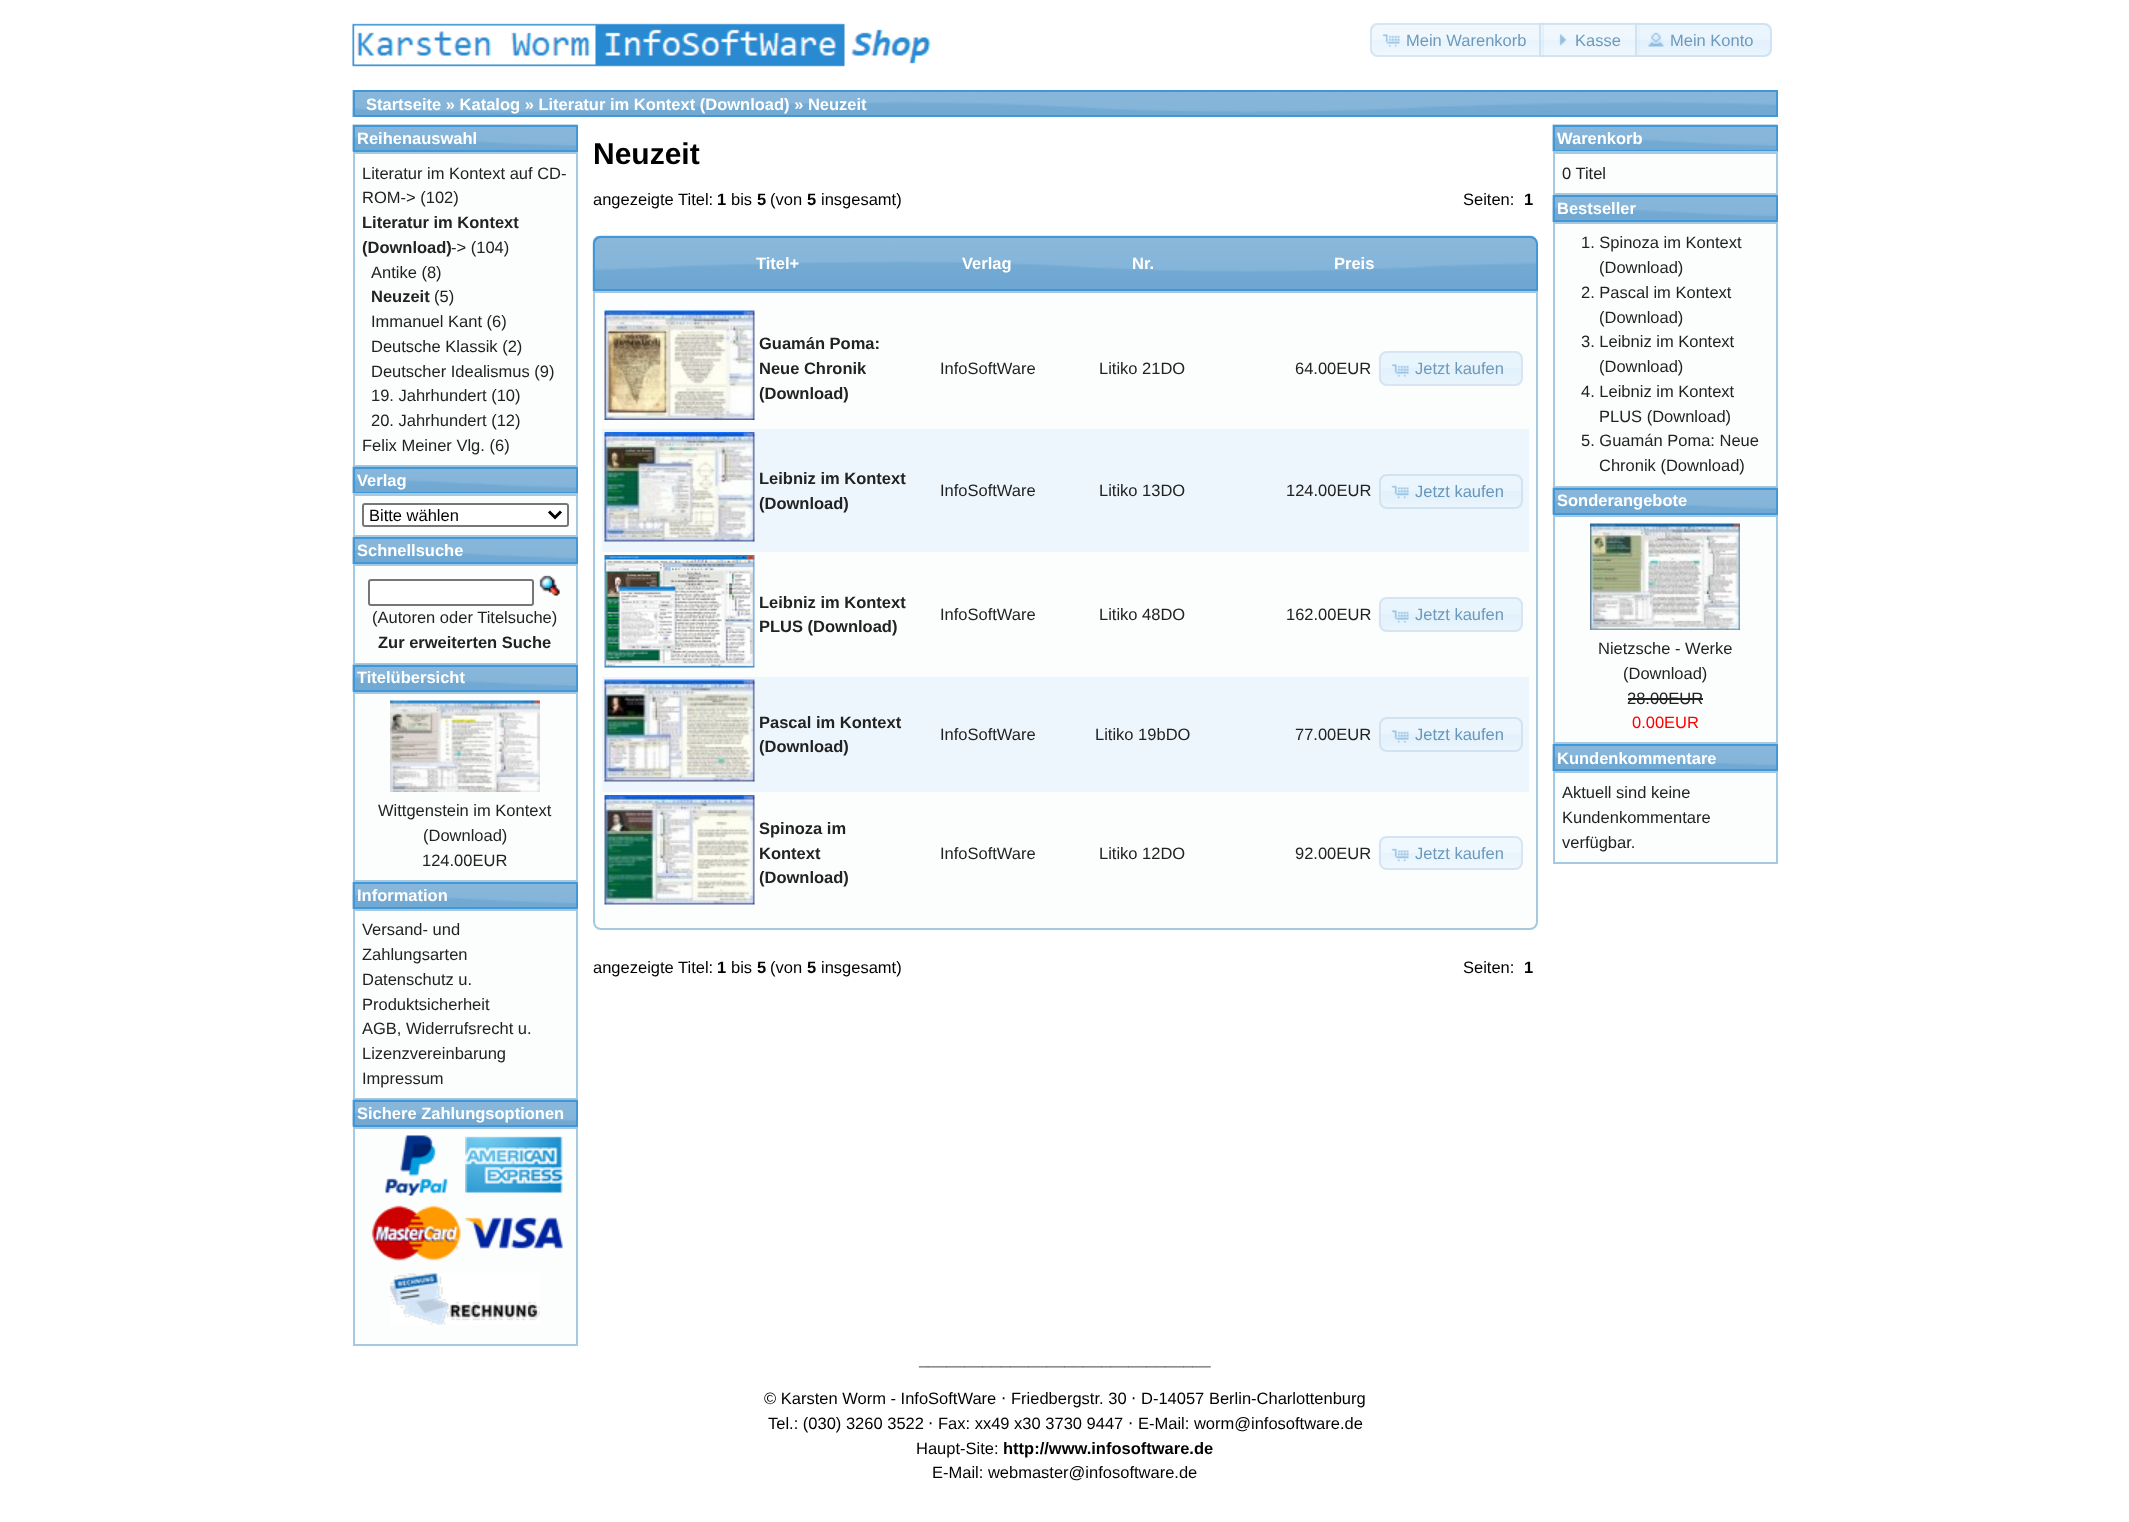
async function draw(canvas) {
	canvas.width = 2129;
	canvas.height = 1522;
	const c = canvas.getContext('2d');
	c.miterLimit = 4;
	c.fontKerning = 'normal';
	async function loadImage(src) {
		const img = new Image();
		img.src = src;
		await img.decode();
		return img;
	}

	c.fillStyle = '#fff';
	c.fillRect(0, 0, 2129, 1522);
	c.drawImage(await loadImage('img1.png'), 352, 23, 579, 44);
	c.drawImage(await loadImage('img2.png'), 1369, 22, 174, 35);
	c.beginPath();
	c.roundRect(1371, 24, 172, 32, [7, 0, 0, 7]);
	c.strokeStyle = '#d6e6f2';
	c.lineWidth = 2;
	c.stroke();
	c.drawImage(await loadImage('img3.png'), 1382, 34, 18, 13);
	c.font = '16.5px Liberation Sans';
	c.fillStyle = '#6d9abb';
	c.fillText('Mein Warenkorb', 1406, 46);
	c.drawImage(await loadImage('img4.png'), 1539, 22, 101, 35);
	c.strokeStyle = '#c5dbecb3';
	c.strokeRect(1540, 24, 99, 32);
	c.drawImage(await loadImage('img5.png'), 1559, 34, 8, 12);
	c.fillText('Kasse', 1575, 46);
	c.fillStyle = '#dfeffcb3';
	c.beginPath();
	c.roundRect(1635, 23, 137, 34, [0, 8, 8, 0]);
	c.fill();
	c.drawImage(await loadImage('img6.png'), 1635, 22, 136, 35);
	c.beginPath();
	c.roundRect(1636, 24, 135, 32, [0, 7, 7, 0]);
	c.stroke();
	c.drawImage(await loadImage('img7.png'), 1648, 32, 16, 15);
	c.fillStyle = '#6d9abb';
	c.fillText('Mein Konto', 1670, 46);
	c.drawImage(await loadImage('img8.png'), 352, 90, 1424, 27);
	c.strokeStyle = '#4297d7';
	c.strokeRect(354, 91, 1423, 25);
	c.font = 'bold 16.5px Liberation Sans';
	c.fillStyle = '#fff';
	c.fillText('Startseite » Katalog » Literatur im Kontext (Download) » Neuzeit', 366, 110);
	c.drawImage(await loadImage('img9.png'), 352, 124, 226, 28);
	c.strokeRect(354, 126, 223, 25);
	c.fillText('Reihenauswahl', 357, 144);
	c.fillStyle = '#fcfdfd';
	c.beginPath();
	c.rect(354, 153, 223, 313);
	c.fill();
	c.strokeStyle = '#a6c9e2';
	c.stroke();
	c.font = '16.5px Liberation Sans';
	c.fillStyle = '#222';
	c.fillText('Literatur im Kontext auf CD-', 362, 179);
	c.fillText('ROM-> (102)', 362, 203);
	c.font = 'bold 16.5px Liberation Sans';
	c.fillText('Literatur im Kontext', 362, 228);
	c.fillText('(Download)', 362, 253);
	c.font = '16.5px Liberation Sans';
	c.fillText('-> (104)', 451, 253);
	c.fillText('Antike (8)', 371, 278);
	c.font = 'bold 16.5px Liberation Sans';
	c.fillText('Neuzeit', 371, 302);
	c.font = '16.5px Liberation Sans';
	for (const [text, x, y] of [
		['(5)', 434, 302],
		['Immanuel Kant (6)', 371, 327],
		['Deutsche Klassik (2)', 371, 352],
		['Deutscher Idealismus (9)', 371, 377],
		['19. Jahrhundert (10)', 371, 401],
		['20. Jahrhundert (12)', 371, 426],
		['Felix Meiner Vlg. (6)', 362, 451],
	]) {
		c.fillText(text, x, y);
	}
	c.drawImage(await loadImage('img10.png'), 352, 466, 226, 28);
	c.strokeStyle = '#4297d7';
	c.strokeRect(354, 468, 223, 25);
	c.font = 'bold 16.5px Liberation Sans';
	c.fillStyle = '#fff';
	c.fillText('Verlag', 357, 486);
	c.fillStyle = '#fcfdfd';
	c.beginPath();
	c.rect(354, 495, 223, 41);
	c.fill();
	c.strokeStyle = '#a6c9e2';
	c.stroke();
	c.drawImage(await loadImage('img11.png'), 352, 493, 226, 1);
	c.fillStyle = '#fff';
	c.beginPath();
	c.roundRect(363, 504, 205, 22, 2);
	c.fill();
	c.strokeStyle = '#767676';
	c.stroke();
	c.beginPath();
	c.moveTo(549, 511.5);
	c.lineTo(555, 517.5);
	c.lineTo(561, 511.5);
	c.strokeStyle = '#000';
	c.lineWidth = 3;
	c.stroke();
	c.font = '16.5px Liberation Sans';
	c.fillStyle = '#000';
	c.fillText('Bitte wählen', 369, 521);
	c.drawImage(await loadImage('img12.png'), 352, 537, 224, 27);
	c.strokeStyle = '#4297d7';
	c.lineWidth = 2;
	c.strokeRect(354, 538, 223, 25);
	c.font = 'bold 16.5px Liberation Sans';
	c.fillStyle = '#fff';
	c.fillText('Schnellsuche', 357, 556);
	c.fillStyle = '#fcfdfd';
	c.beginPath();
	c.rect(354, 565, 223, 99);
	c.fill();
	c.strokeStyle = '#a6c9e2';
	c.stroke();
	c.fillStyle = '#fff';
	c.beginPath();
	c.roundRect(369, 580, 164, 25, 2);
	c.fill();
	c.strokeStyle = '#767676';
	c.stroke();
	c.drawImage(await loadImage('img13.png'), 539, 575, 21, 21);
	c.font = '16.5px Liberation Sans';
	c.fillStyle = '#222';
	c.fillText('(Autoren oder Titelsuche)', 372, 623);
	c.font = 'bold 16.5px Liberation Sans';
	c.fillText('Zur erweiterten Suche', 378, 648);
	c.drawImage(await loadImage('img10.png'), 352, 664, 226, 28);
	c.strokeStyle = '#4297d7';
	c.strokeRect(354, 666, 223, 25);
	c.fillStyle = '#fff';
	c.fillText('Titelübersicht', 357, 683);
	c.fillStyle = '#fcfdfd';
	c.beginPath();
	c.rect(354, 693, 223, 188);
	c.fill();
	c.strokeStyle = '#a6c9e2';
	c.stroke();
	c.drawImage(await loadImage('img14.png'), 390, 700, 150, 92);
	c.font = '16.5px Liberation Sans';
	c.fillStyle = '#222';
	for (const [text, x, y] of [
		['Wittgenstein im Kontext', 378, 816],
		['(Download)', 423, 841],
		['124.00EUR', 422, 866],
	]) {
		c.fillText(text, x, y);
	}
	c.drawImage(await loadImage('img12.png'), 352, 882, 224, 27);
	c.strokeStyle = '#4297d7';
	c.strokeRect(354, 883, 223, 25);
	c.font = 'bold 16.5px Liberation Sans';
	c.fillStyle = '#fff';
	c.fillText('Information', 357, 901);
	c.fillStyle = '#fcfdfd';
	c.beginPath();
	c.rect(354, 910, 223, 189);
	c.fill();
	c.strokeStyle = '#a6c9e2';
	c.stroke();
	c.font = '16.5px Liberation Sans';
	c.fillStyle = '#222';
	for (const [text, x, y] of [
		['Versand- und', 362, 935],
		['Zahlungsarten', 362, 960],
		['Datenschutz u.', 362, 985],
		['Produktsicherheit', 362, 1010],
		['AGB, Widerrufsrecht u.', 362, 1034],
		['Lizenzvereinbarung', 362, 1059],
		['Impressum', 362, 1084],
	]) {
		c.fillText(text, x, y);
	}
	c.drawImage(await loadImage('img10.png'), 352, 1099, 226, 28);
	c.strokeStyle = '#4297d7';
	c.strokeRect(354, 1101, 223, 25);
	c.font = 'bold 16.5px Liberation Sans';
	c.fillStyle = '#fff';
	c.fillText('Sichere Zahlungsoptionen', 357, 1119);
	c.fillStyle = '#fcfdfd';
	c.beginPath();
	c.rect(354, 1128, 223, 217);
	c.fill();
	c.strokeStyle = '#a6c9e2';
	c.stroke();
	c.drawImage(await loadImage('img15.png'), 385, 1135, 63, 61);
	c.drawImage(await loadImage('img16.png'), 465, 1136, 98, 57);
	c.drawImage(await loadImage('img17.png'), 371, 1205, 90, 56);
	c.drawImage(await loadImage('img18.png'), 465, 1217, 98, 32);
	c.drawImage(await loadImage('img19.png'), 390, 1273, 150, 52);
	c.font = 'bold 30px Liberation Sans';
	c.fillStyle = '#000';
	c.fillText('Neuzeit', 593, 164);
	c.font = '16.5px Liberation Sans';
	c.fillText('angezeigte Titel:', 593, 205);
	c.font = 'bold 16.5px Liberation Sans';
	c.fillText('1', 717, 205);
	c.font = '16.5px Liberation Sans';
	c.fillText('bis', 731, 205);
	c.font = 'bold 16.5px Liberation Sans';
	c.fillText('5', 757, 205);
	c.font = '16.5px Liberation Sans';
	c.fillText('(von', 770, 205);
	c.font = 'bold 16.5px Liberation Sans';
	c.fillText('5', 807, 205);
	c.font = '16.5px Liberation Sans';
	c.fillText('insgesamt)', 821, 205);
	c.fillText('Seiten:', 1463, 205);
	c.font = 'bold 16.5px Liberation Sans';
	c.fillText('1', 1524, 205);
	c.drawImage(await loadImage('img20.png'), 592, 235, 946, 56);
	c.beginPath();
	c.roundRect(594, 237, 943, 53, [7, 7, 0, 0]);
	c.strokeStyle = '#4297d7';
	c.stroke();
	c.fillStyle = '#fff';
	for (const [text, x, y] of [
		['Titel+', 756, 269],
		['Verlag', 962, 269],
		['Nr.', 1132, 269],
		['Preis', 1334, 269],
	]) {
		c.fillText(text, x, y);
	}
	c.fillStyle = '#fcfdfd';
	c.beginPath();
	c.roundRect(594, 292, 943, 637, [0, 0, 7, 7]);
	c.fill();
	c.strokeStyle = '#a6c9e2';
	c.stroke();
	c.drawImage(await loadImage('img21.png'), 604, 310, 151, 110);
	c.fillStyle = '#222';
	for (const [text, x, y] of [
		['Guamán Poma:', 759, 349],
		['Neue Chronik', 759, 374],
		['(Download)', 759, 399],
	]) {
		c.fillText(text, x, y);
	}
	c.font = '16.5px Liberation Sans';
	for (const [text, x, y] of [
		['InfoSoftWare', 940, 374],
		['Litiko 21DO', 1099, 374],
		['64.00EUR', 1295, 374],
	]) {
		c.fillText(text, x, y);
	}
	c.fillStyle = '#e8f3fc';
	c.beginPath();
	c.roundRect(1379, 351, 144, 35, 8);
	c.fill();
	c.drawImage(await loadImage('img22.png'), 1378, 351, 144, 32);
	c.beginPath();
	c.roundRect(1380, 352, 142, 33, 7);
	c.strokeStyle = '#d6e5f1';
	c.stroke();
	c.drawImage(await loadImage('img23.png'), 1391, 364, 18, 13);
	c.fillStyle = '#6d9abb';
	c.fillText('Jetzt kaufen', 1415, 374);
	c.fillStyle = '#ecf6fc';
	c.fillRect(602, 429, 927, 123);
	c.drawImage(await loadImage('img24.png'), 604, 432, 151, 110);
	c.font = 'bold 16.5px Liberation Sans';
	c.fillStyle = '#222';
	c.fillText('Leibniz im Kontext', 759, 484);
	c.fillText('(Download)', 759, 509);
	c.font = '16.5px Liberation Sans';
	for (const [text, x, y] of [
		['InfoSoftWare', 940, 496],
		['Litiko 13DO', 1099, 496],
		['124.00EUR', 1286, 496],
	]) {
		c.fillText(text, x, y);
	}
	c.drawImage(await loadImage('img25.png'), 1379, 474, 143, 34);
	c.beginPath();
	c.roundRect(1380, 475, 142, 33, 7);
	c.strokeStyle = '#d1e3f1';
	c.stroke();
	c.drawImage(await loadImage('img26.png'), 1391, 485, 18, 14);
	c.fillStyle = '#6797ba';
	c.fillText('Jetzt kaufen', 1415, 497);
	c.drawImage(await loadImage('img27.png'), 604, 555, 151, 113);
	c.font = 'bold 16.5px Liberation Sans';
	c.fillStyle = '#222';
	c.fillText('Leibniz im Kontext', 759, 608);
	c.fillText('PLUS (Download)', 759, 632);
	c.font = '16.5px Liberation Sans';
	for (const [text, x, y] of [
		['InfoSoftWare', 940, 620],
		['Litiko 48DO', 1099, 620],
		['162.00EUR', 1286, 620],
	]) {
		c.fillText(text, x, y);
	}
	c.fillStyle = '#e8f3fc';
	c.beginPath();
	c.roundRect(1379, 597, 144, 35, 8);
	c.fill();
	c.drawImage(await loadImage('img22.png'), 1378, 597, 144, 32);
	c.beginPath();
	c.roundRect(1380, 598, 142, 33, 7);
	c.strokeStyle = '#d6e5f1';
	c.stroke();
	c.drawImage(await loadImage('img23.png'), 1391, 610, 18, 13);
	c.fillStyle = '#6d9abb';
	c.fillText('Jetzt kaufen', 1415, 620);
	c.fillStyle = '#ecf6fc';
	c.fillRect(602, 677, 927, 115);
	c.drawImage(await loadImage('img28.png'), 604, 679, 151, 103);
	c.font = 'bold 16.5px Liberation Sans';
	c.fillStyle = '#222';
	c.fillText('Pascal im Kontext', 759, 728);
	c.fillText('(Download)', 759, 752);
	c.font = '16.5px Liberation Sans';
	for (const [text, x, y] of [
		['InfoSoftWare', 940, 740],
		['Litiko 19bDO', 1095, 740],
		['77.00EUR', 1295, 740],
	]) {
		c.fillText(text, x, y);
	}
	c.drawImage(await loadImage('img25.png'), 1379, 717, 143, 34);
	c.beginPath();
	c.roundRect(1380, 718, 142, 33, 7);
	c.strokeStyle = '#d1e3f1';
	c.stroke();
	c.drawImage(await loadImage('img29.png'), 1391, 730, 18, 13);
	c.fillStyle = '#6797ba';
	c.fillText('Jetzt kaufen', 1415, 740);
	c.drawImage(await loadImage('img30.png'), 604, 795, 151, 110);
	c.font = 'bold 16.5px Liberation Sans';
	c.fillStyle = '#222';
	for (const [text, x, y] of [
		['Spinoza im', 759, 834],
		['Kontext', 759, 859],
		['(Download)', 759, 883],
	]) {
		c.fillText(text, x, y);
	}
	c.font = '16.5px Liberation Sans';
	for (const [text, x, y] of [
		['InfoSoftWare', 940, 859],
		['Litiko 12DO', 1099, 859],
		['92.00EUR', 1295, 859],
	]) {
		c.fillText(text, x, y);
	}
	c.drawImage(await loadImage('img31.png'), 1378, 836, 144, 34);
	c.beginPath();
	c.roundRect(1380, 837, 142, 32, 7);
	c.strokeStyle = '#d6e5f1';
	c.stroke();
	c.drawImage(await loadImage('img32.png'), 1391, 848, 18, 14);
	c.fillStyle = '#6d9abb';
	c.fillText('Jetzt kaufen', 1415, 859);
	c.fillStyle = '#000';
	c.fillText('angezeigte Titel:', 593, 973);
	c.font = 'bold 16.5px Liberation Sans';
	c.fillText('1', 717, 973);
	c.font = '16.5px Liberation Sans';
	c.fillText('bis', 731, 973);
	c.font = 'bold 16.5px Liberation Sans';
	c.fillText('5', 757, 973);
	c.font = '16.5px Liberation Sans';
	c.fillText('(von', 770, 973);
	c.font = 'bold 16.5px Liberation Sans';
	c.fillText('5', 807, 973);
	c.font = '16.5px Liberation Sans';
	c.fillText('insgesamt)', 821, 973);
	c.fillText('Seiten:', 1463, 973);
	c.font = 'bold 16.5px Liberation Sans';
	c.fillText('1', 1524, 973);
	c.drawImage(await loadImage('img33.png'), 1552, 124, 226, 28);
	c.strokeStyle = '#4297d7';
	c.strokeRect(1554, 126, 223, 25);
	c.fillStyle = '#fff';
	c.fillText('Warenkorb', 1557, 144);
	c.fillStyle = '#fcfdfd';
	c.beginPath();
	c.rect(1554, 153, 223, 41);
	c.fill();
	c.strokeStyle = '#a6c9e2';
	c.stroke();
	c.drawImage(await loadImage('img11.png'), 1552, 151, 226, 1);
	c.font = '16.5px Liberation Sans';
	c.fillStyle = '#222';
	c.fillText('0 Titel', 1562, 179);
	c.drawImage(await loadImage('img34.png'), 1552, 195, 224, 27);
	c.strokeStyle = '#4297d7';
	c.strokeRect(1554, 196, 223, 25);
	c.font = 'bold 16.5px Liberation Sans';
	c.fillStyle = '#fff';
	c.fillText('Bestseller', 1557, 214);
	c.fillStyle = '#fcfdfd';
	c.beginPath();
	c.rect(1554, 223, 223, 264);
	c.fill();
	c.strokeStyle = '#a6c9e2';
	c.stroke();
	c.font = '16.5px Liberation Sans';
	c.fillStyle = '#222';
	for (const [text, x, y] of [
		['1. Spinoza im Kontext', 1581, 248],
		['(Download)', 1599, 273],
		['2. Pascal im Kontext', 1581, 298],
		['(Download)', 1599, 323],
		['3. Leibniz im Kontext', 1581, 347],
		['(Download)', 1599, 372],
		['4. Leibniz im Kontext', 1581, 397],
		['PLUS (Download)', 1599, 422],
		['5. Guamán Poma: Neue', 1581, 446],
		['Chronik (Download)', 1599, 471],
	]) {
		c.fillText(text, x, y);
	}
	c.drawImage(await loadImage('img35.png'), 1552, 487, 226, 28);
	c.strokeStyle = '#4297d7';
	c.strokeRect(1554, 489, 223, 25);
	c.font = 'bold 16.5px Liberation Sans';
	c.fillStyle = '#fff';
	c.fillText('Sonderangebote', 1557, 506);
	c.fillStyle = '#fcfdfd';
	c.beginPath();
	c.rect(1554, 516, 223, 227);
	c.fill();
	c.strokeStyle = '#a6c9e2';
	c.stroke();
	c.drawImage(await loadImage('img36.png'), 1590, 523, 150, 107);
	c.font = '16.5px Liberation Sans';
	c.fillStyle = '#222';
	for (const [text, x, y] of [
		['Nietzsche - Werke', 1598, 654],
		['(Download)', 1623, 679],
		['28.00EUR', 1627, 704],
	]) {
		c.fillText(text, x, y);
	}
	c.fillRect(1628, 698, 75, 2);
	c.fillStyle = '#f00';
	c.fillText('0.00EUR', 1632, 728);
	c.drawImage(await loadImage('img34.png'), 1552, 744, 224, 27);
	c.strokeStyle = '#4297d7';
	c.strokeRect(1554, 745, 223, 25);
	c.font = 'bold 16.5px Liberation Sans';
	c.fillStyle = '#fff';
	c.fillText('Kundenkommentare', 1557, 764);
	c.fillStyle = '#fcfdfd';
	c.beginPath();
	c.rect(1554, 772, 223, 91);
	c.fill();
	c.strokeStyle = '#a6c9e2';
	c.stroke();
	c.font = '16.5px Liberation Sans';
	c.fillStyle = '#222';
	for (const [text, x, y] of [
		['Aktuell sind keine', 1562, 798],
		['Kundenkommentare', 1562, 823],
		['verfügbar.', 1562, 848],
	]) {
		c.fillText(text, x, y);
	}
	c.fillStyle = '#000';
	c.fillText('¯¯¯¯¯¯¯¯¯¯¯¯¯¯¯¯¯¯¯¯¯¯¯¯¯¯¯¯¯¯¯¯', 919, 1379);
	c.fillText('© Karsten Worm - InfoSoftWare', 764, 1404);
	c.font = '16.5px DejaVu Sans';
	c.fillText('⋅', 1001, 1404);
	c.font = '16.5px Liberation Sans';
	c.fillText('Friedbergstr. 30', 1011, 1404);
	c.font = '16.5px DejaVu Sans';
	c.fillText('⋅', 1131, 1404);
	c.font = '16.5px Liberation Sans';
	c.fillText('D-14057 Berlin-Charlottenburg', 1141, 1404);
	c.fillText('Tel.: (030) 3260 3522', 768, 1429);
	c.font = '16.5px DejaVu Sans';
	c.fillText('⋅', 928, 1429);
	c.font = '16.5px Liberation Sans';
	c.fillText('Fax: xx49 x30 3730 9447', 938, 1429);
	c.font = '16.5px DejaVu Sans';
	c.fillText('⋅', 1128, 1429);
	c.font = '16.5px Liberation Sans';
	c.fillText('E-Mail: worm@infosoftware.de', 1138, 1429);
	c.fillText('Haupt-Site:', 916, 1454);
	c.font = 'bold 16.5px Liberation Sans';
	c.fillText('http://www.infosoftware.de', 1003, 1454);
	c.font = '16.5px Liberation Sans';
	c.fillText('E-Mail: webmaster@infosoftware.de', 932, 1478);
}

draw(document.querySelector('canvas'));
